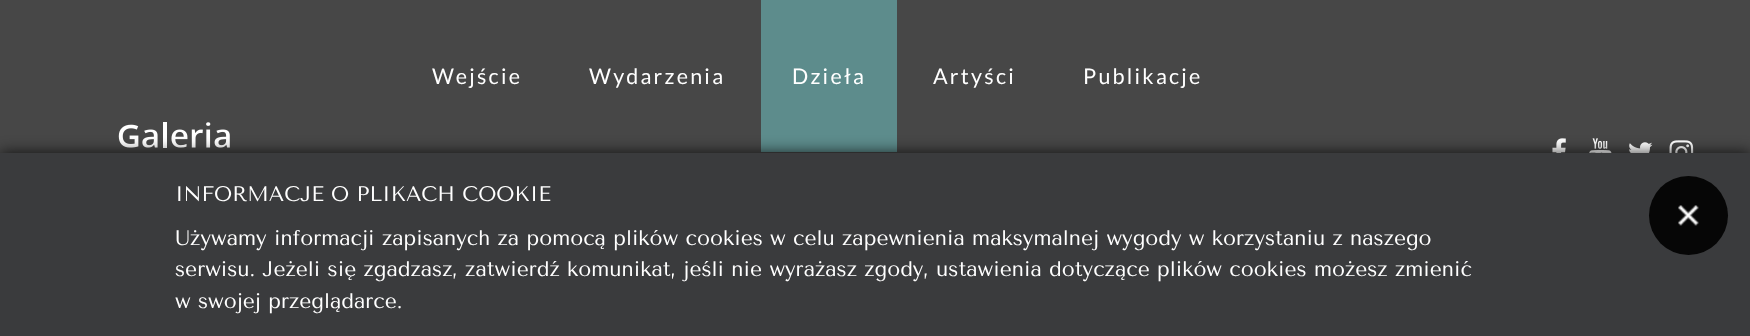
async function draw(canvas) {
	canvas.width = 1750;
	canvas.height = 336;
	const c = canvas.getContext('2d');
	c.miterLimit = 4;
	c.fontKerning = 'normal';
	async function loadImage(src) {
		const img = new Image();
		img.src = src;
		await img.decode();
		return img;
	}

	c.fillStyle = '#474747';
	c.fillRect(0, 0, 1750, 336);
	c.letterSpacing = '2.25px';
	c.font = '21.5px Lato';
	c.fillStyle = '#fff';
	c.fillText('Wejście', 432, 84);
	c.fillText('Wydarzenia', 589, 84);
	c.fillStyle = '#5d8c8c';
	c.fillRect(761, 0, 136, 152);
	c.fillStyle = '#fff';
	for (const [text, x, y] of [
		['Dzieła', 792, 84],
		['Artyści', 933, 84],
		['Publikacje', 1083, 84],
	]) {
		c.fillText(text, x, y);
	}
	c.drawImage(await loadImage('img1.png'), 118, 122, 112, 26);
	c.drawImage(await loadImage('img2.png'), 1552, 138, 14, 15);
	c.drawImage(await loadImage('img3.png'), 1589, 138, 23, 15);
	c.drawImage(await loadImage('img4.png'), 1629, 142, 24, 11);
	c.drawImage(await loadImage('img5.png'), 1669, 140, 25, 13);
	c.fillStyle = '#000000cc';
	c.filter = 'blur(7.5px)';
	c.beginPath();
	c.rect(0, 153, 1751, 183);
	c.fill();
	c.filter = 'none';
	c.fillStyle = '#3a3b3d';
	c.fillRect(0, 153, 1750, 183);
	c.letterSpacing = '0px';
	c.font = '21px Tenor Sans';
	c.fillStyle = '#fff';
	for (const [text, x, y] of [
		['INFORMACJE O PLIKACH COOKIE', 175, 201],
		['Używamy informacji zapisanych za pomocą plików cookies w celu zapewnienia maksymalnej wygody w korzystaniu z naszego', 175, 245],
		['serwisu. Jeżeli się zgadzasz, zatwierdź komunikat, jeśli nie wyrażasz zgody, ustawienia dotyczące plików cookies możesz zmienić', 175, 276],
		['w swojej przeglądarce.', 175, 308],
	]) {
		c.fillText(text, x, y);
	}
	c.fillStyle = '#060606';
	c.beginPath();
	c.arc(1688.5, 215.5, 39.5, 0, 2 * Math.PI);
	c.fill();
	c.drawImage(await loadImage('img6.png'), 1678, 205, 21, 21);
}

draw(document.querySelector('canvas'));
